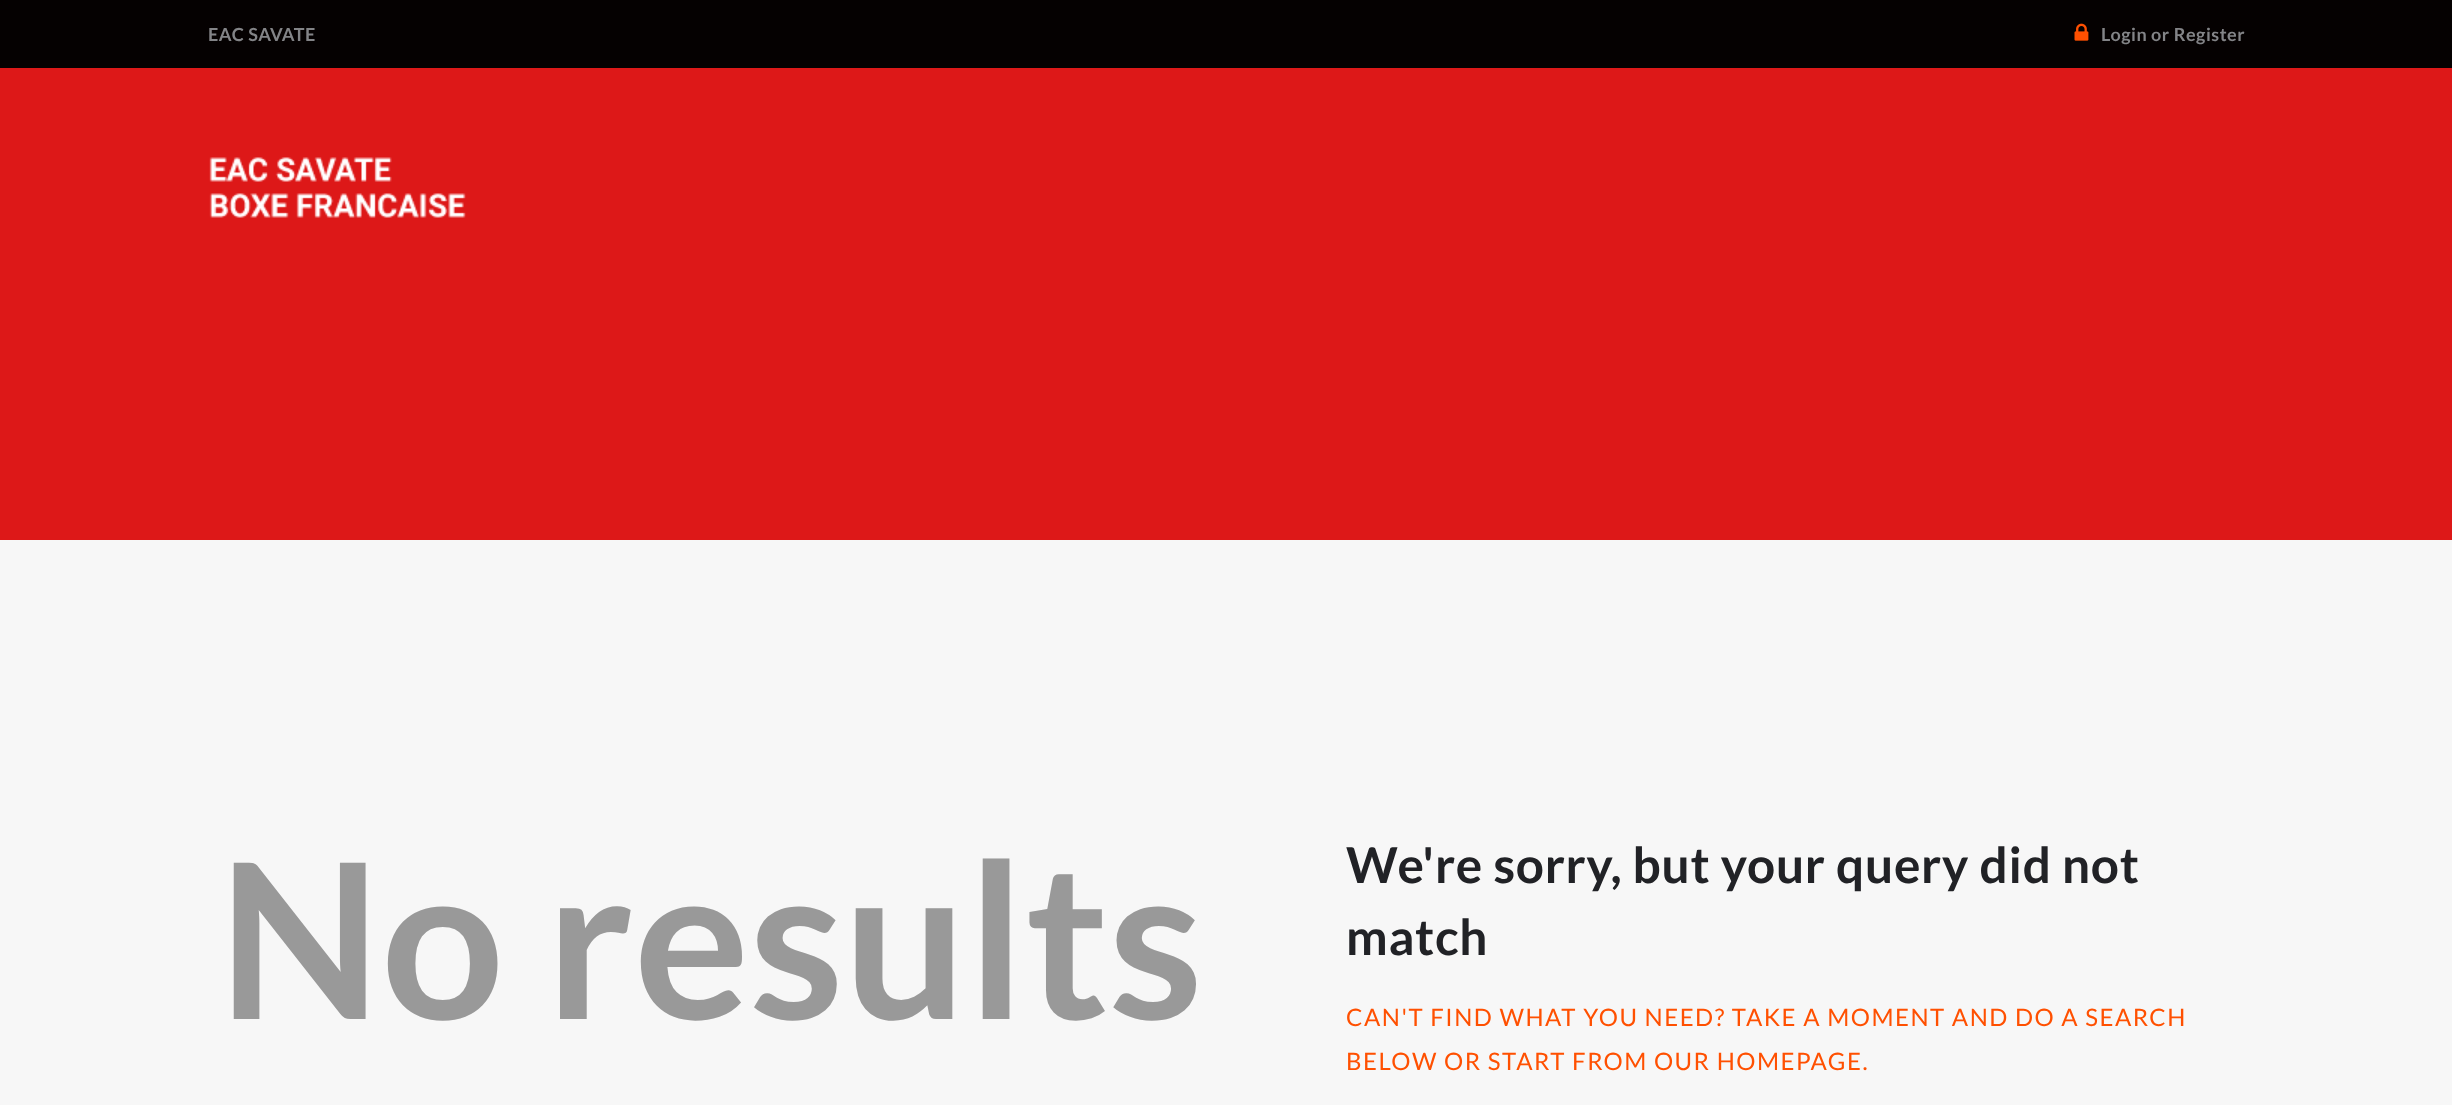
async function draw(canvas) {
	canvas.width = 2452;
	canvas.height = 1105;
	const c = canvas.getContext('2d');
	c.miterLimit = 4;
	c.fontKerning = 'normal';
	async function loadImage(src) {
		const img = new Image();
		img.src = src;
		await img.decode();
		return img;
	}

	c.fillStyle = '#f7f7f7';
	c.fillRect(0, 0, 2452, 1105);
	c.fillStyle = '#050101';
	c.fillRect(0, 0, 2452, 68);
	c.letterSpacing = '0.5px';
	c.font = 'bold 18px Lato';
	c.fillStyle = '#838487';
	c.fillText('EAC SAVATE', 208, 41);
	c.drawImage(await loadImage('img1.png'), 2074, 23, 15, 18);
	c.fillText('Login or Register', 2101, 41);
	c.fillStyle = '#dd1818';
	c.fillRect(0, 68, 2452, 472);
	c.drawImage(await loadImage('img2.png'), 209, 157, 257, 61);
	c.letterSpacing = '0px';
	c.font = 'bold 216px Lato';
	c.fillStyle = '#999';
	c.fillText('No results', 218, 1019);
	c.letterSpacing = '0.75px';
	c.font = 'bold 49.5px Lato';
	c.fillStyle = '#212226';
	c.fillText('We\'re sorry, but your query did not', 1346, 883);
	c.fillText('match', 1346, 955);
	c.letterSpacing = '1.5px';
	c.font = '24px Lato';
	c.fillStyle = '#ff5001';
	c.fillText('CAN\'T FIND WHAT YOU NEED? TAKE A MOMENT AND DO A SEARCH', 1346, 1026);
	c.fillText('BELOW OR START FROM OUR HOMEPAGE.', 1346, 1070);
}

draw(document.querySelector('canvas'));
